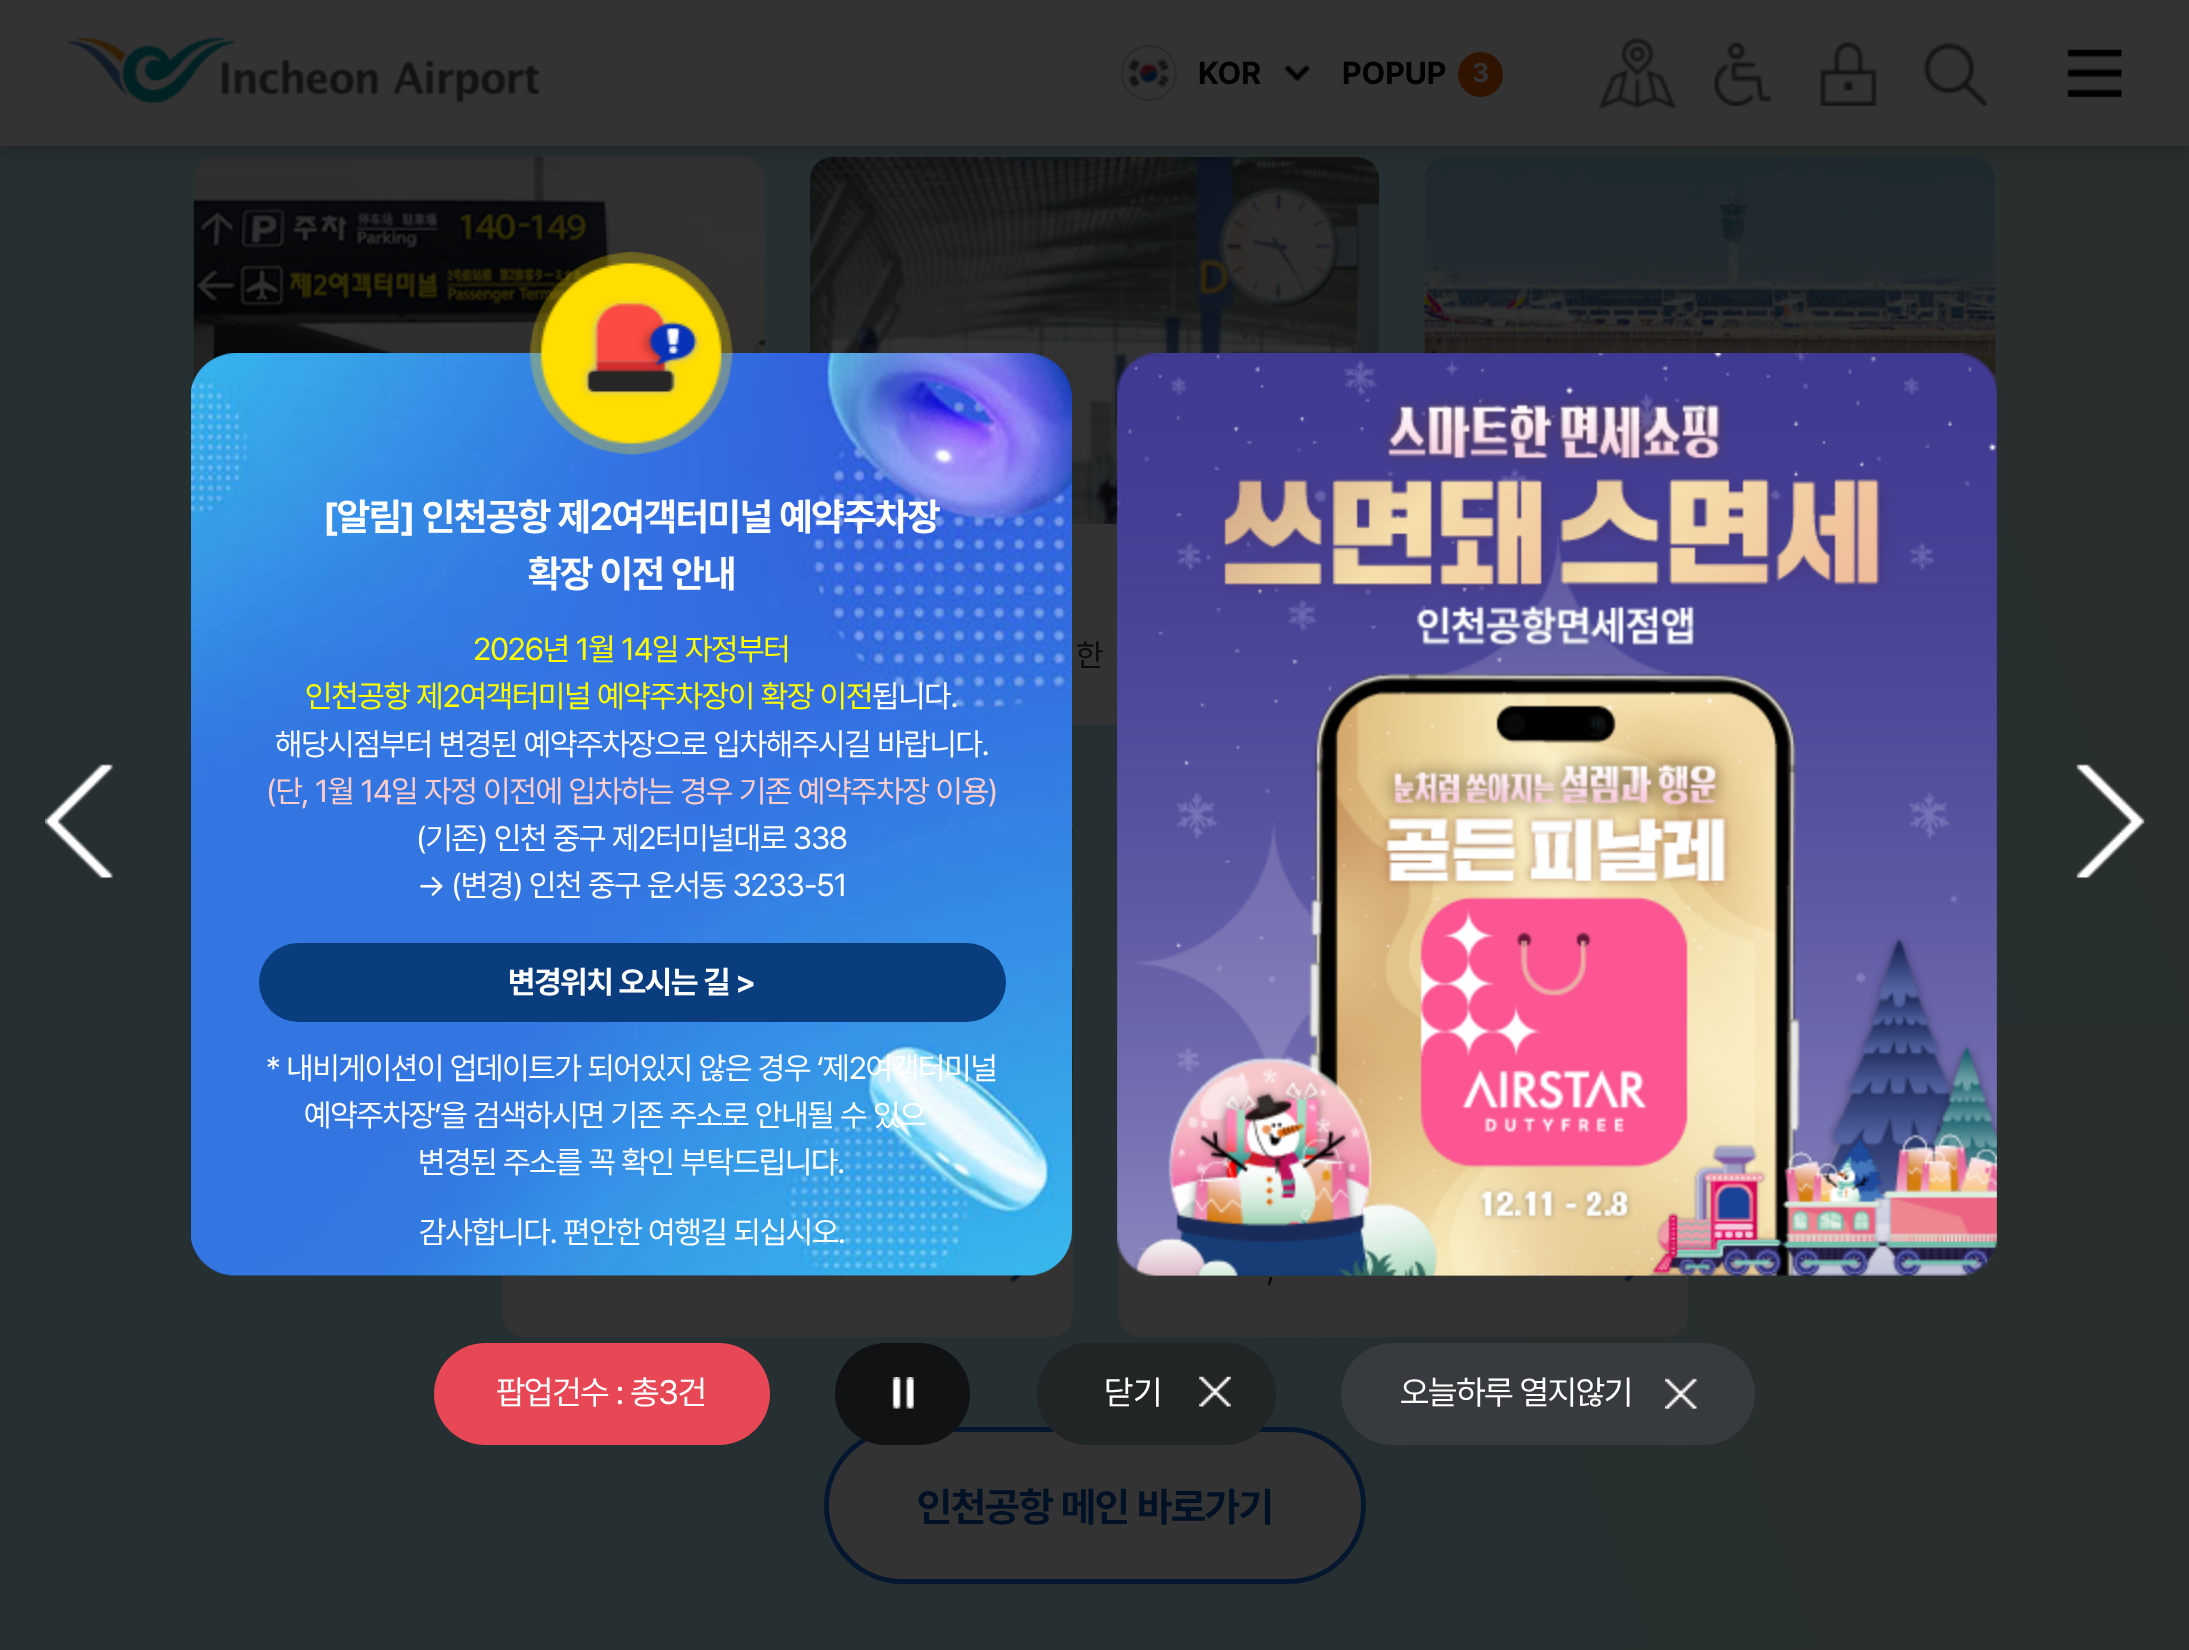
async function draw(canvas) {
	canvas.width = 2189;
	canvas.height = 1650;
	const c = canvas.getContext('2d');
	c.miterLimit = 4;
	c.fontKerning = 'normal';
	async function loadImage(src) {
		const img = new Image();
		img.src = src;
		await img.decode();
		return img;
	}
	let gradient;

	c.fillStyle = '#fff';
	c.fillRect(0, 0, 2189, 1650);
	gradient = c.createLinearGradient(-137, 649, 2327, -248);
	gradient.addColorStop(0.6, '#262f31');
	gradient.addColorStop(1, '#2a2f2b');
	c.fillStyle = gradient;
	c.fillRect(0, 146, 2189, 880);
	gradient = c.createLinearGradient(-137, 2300, 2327, 1403);
	gradient.addColorStop(0.6, '#262f31');
	gradient.addColorStop(1, '#2a2f2b');
	c.fillStyle = gradient;
	c.fillRect(0, 1026, 2189, 624);
	c.drawImage(await loadImage('img17.png'), 193, 157, 572, 227);
	c.fillStyle = '#333';
	c.beginPath();
	c.roundRect(810, 158, 569, 567, 23);
	c.fill();
	c.drawImage(await loadImage('img18.png'), 810, 157, 570, 367);
	c.beginPath();
	c.roundRect(1424, 158, 572, 567, 23);
	c.fill();
	c.drawImage(await loadImage('img19.png'), 1424, 157, 572, 237);
	c.fillStyle = '#0000004d';
	c.filter = 'blur(11px)';
	c.beginPath();
	c.rect(0, 0, 2189, 146);
	c.fill();
	c.filter = 'none';
	c.fillStyle = '#333';
	c.fillRect(0, 0, 2189, 146);
	c.drawImage(await loadImage('img1.png'), 68, 37, 472, 67);
	c.drawImage(await loadImage('img2.png'), 1127, 57, 44, 32);
	c.beginPath();
	c.arc(1149, 73, 27, 0, 2 * Math.PI);
	c.strokeStyle = '#2a2a2a';
	c.lineWidth = 2;
	c.stroke();
	c.font = 'bold 31.5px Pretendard';
	c.fillStyle = '#000';
	c.fillText('KOR', 1198, 84);
	c.drawImage(await loadImage('img3.png'), 1284, 64, 26, 17);
	c.fillText('POPUP', 1342, 84);
	c.fillStyle = '#311400';
	c.beginPath();
	c.arc(1480.5, 74.5, 22.5, 0, 2 * Math.PI);
	c.fill();
	c.font = 'bold 27px Pretendard';
	c.fillStyle = '#333';
	c.fillText('3', 1472, 82);
	c.drawImage(await loadImage('img4.png'), 1598, 37, 79, 73);
	c.drawImage(await loadImage('img5.png'), 1714, 42, 58, 64);
	c.drawImage(await loadImage('img6.png'), 1820, 41, 58, 65);
	c.drawImage(await loadImage('img7.png'), 1923, 42, 65, 64);
	c.drawImage(await loadImage('img8.png'), 2067, 49, 55, 48);
	c.beginPath();
	c.roundRect(502, 770, 571, 567, 23);
	c.fill();
	c.drawImage(await loadImage('img21.png'), 1009, 1275, 14, 7);
	c.drawImage(await loadImage('img10.png'), 191, 353, 881, 923);
	c.drawImage(await loadImage('img9.png'), 529, 252, 204, 203);
	c.letterSpacing = '-1.1px';
	c.font = 'bold 38.25px Pretendard';
	c.fillStyle = '#fff';
	c.fillText('[알림] 인천공항 제2여객터미널 예약주차장', 323, 530);
	c.fillText('확장 이전 안내', 528, 587);
	c.font = '31.5px Pretendard';
	c.fillStyle = '#ff0';
	c.fillText('2026년 1월 14일 자정부터', 473, 660);
	c.fillText('인천공항 제2여객터미널 예약주차장이 확장 이전', 305, 707);
	c.fillStyle = '#fff';
	c.fillText('됩니다.', 872, 707);
	c.fillText('해당시점부터 변경된 예약주차장으로 입차해주시길 바랍니다.', 275, 755);
	c.fillStyle = '#fcc';
	c.fillText('(단, 1월 14일 자정 이전에 입차하는 경우 기존 예약주차장 이용)', 266, 802);
	c.fillStyle = '#fff';
	c.fillText('(기존) 인천 중구 제2터미널대로 338', 416, 849);
	c.fillText('→ (변경) 인천 중구 운서동 3233-51', 417, 896);
	c.fillStyle = '#0a3d7d';
	c.beginPath();
	c.roundRect(259, 943, 747, 79, 39.5);
	c.fill();
	c.font = 'bold 31.5px Pretendard';
	c.fillStyle = '#fff';
	c.fillText('변경위치 오시는 길 >', 508, 993);
	c.font = '31.5px Pretendard';
	for (const [text, x, y] of [
		['* 내비게이션이 업데이트가 되어있지 않은 경우 ‘제2여객터미널', 266, 1079],
		['예약주차장’을 검색하시면 기존 주소로 안내될 수 있으', 304, 1126],
		['변경된 주소를 꼭 확인 부탁드립니다.', 418, 1173],
		['감사합니다. 편안한 여행길 되십시오.', 419, 1243],
	]) {
		c.fillText(text, x, y);
	}
	c.fillStyle = '#333';
	c.beginPath();
	c.roundRect(1118, 770, 570, 567, 23);
	c.fill();
	c.drawImage(await loadImage('img22.png'), 1624, 1275, 13, 7);
	c.drawImage(await loadImage('img11.png'), 1117, 353, 880, 923);
	c.drawImage(await loadImage('img12.png'), 45, 764, 68, 114);
	c.drawImage(await loadImage('img13.png'), 2076, 764, 69, 114);
	c.fillStyle = '#e84855';
	c.beginPath();
	c.roundRect(434, 1343, 336, 102, 51);
	c.fill();
	c.font = '33.75px Pretendard';
	c.fillStyle = '#fff';
	c.fillText('팝업건수 : 총3건', 496, 1404);
	c.fillStyle = '#333';
	c.beginPath();
	c.roundRect(826.5, 1429.5, 537, 152, 76);
	c.fill();
	c.strokeStyle = '#04172e';
	c.lineWidth = 5;
	c.stroke();
	c.fillStyle = '#101213';
	c.beginPath();
	c.roundRect(835, 1343, 135, 102, 51);
	c.fill();
	c.drawImage(await loadImage('img14.png'), 892, 1377, 22, 32);
	c.fillStyle = '#222526';
	c.beginPath();
	c.roundRect(1037, 1343, 239, 102, 51);
	c.fill();
	c.letterSpacing = '0px';
	c.fillStyle = '#fff';
	c.fillText('닫기', 1104, 1404);
	c.drawImage(await loadImage('img15.png'), 1199, 1376, 32, 31);
	c.fillStyle = '#373b3d';
	c.beginPath();
	c.roundRect(1341, 1343, 414, 102, 51);
	c.fill();
	c.letterSpacing = '-1.1px';
	c.fillStyle = '#fff';
	c.fillText('오늘하루 열지않기', 1400, 1404);
	c.drawImage(await loadImage('img16.png'), 1665, 1378, 32, 31);
	c.font = '31.5px Pretendard';
	c.fillStyle = '#0a0a0a';
	c.fillText('한', 1076, 666);
	c.drawImage(await loadImage('img20.png'), 1072, 784, 2, 354);
	c.fillText(',', 1267, 1279);
	c.font = 'bold 40.5px Pretendard';
	c.fillStyle = '#001126';
	c.fillText('인천공항 메인 바로가기', 917, 1521);
}

draw(document.querySelector('canvas'));
